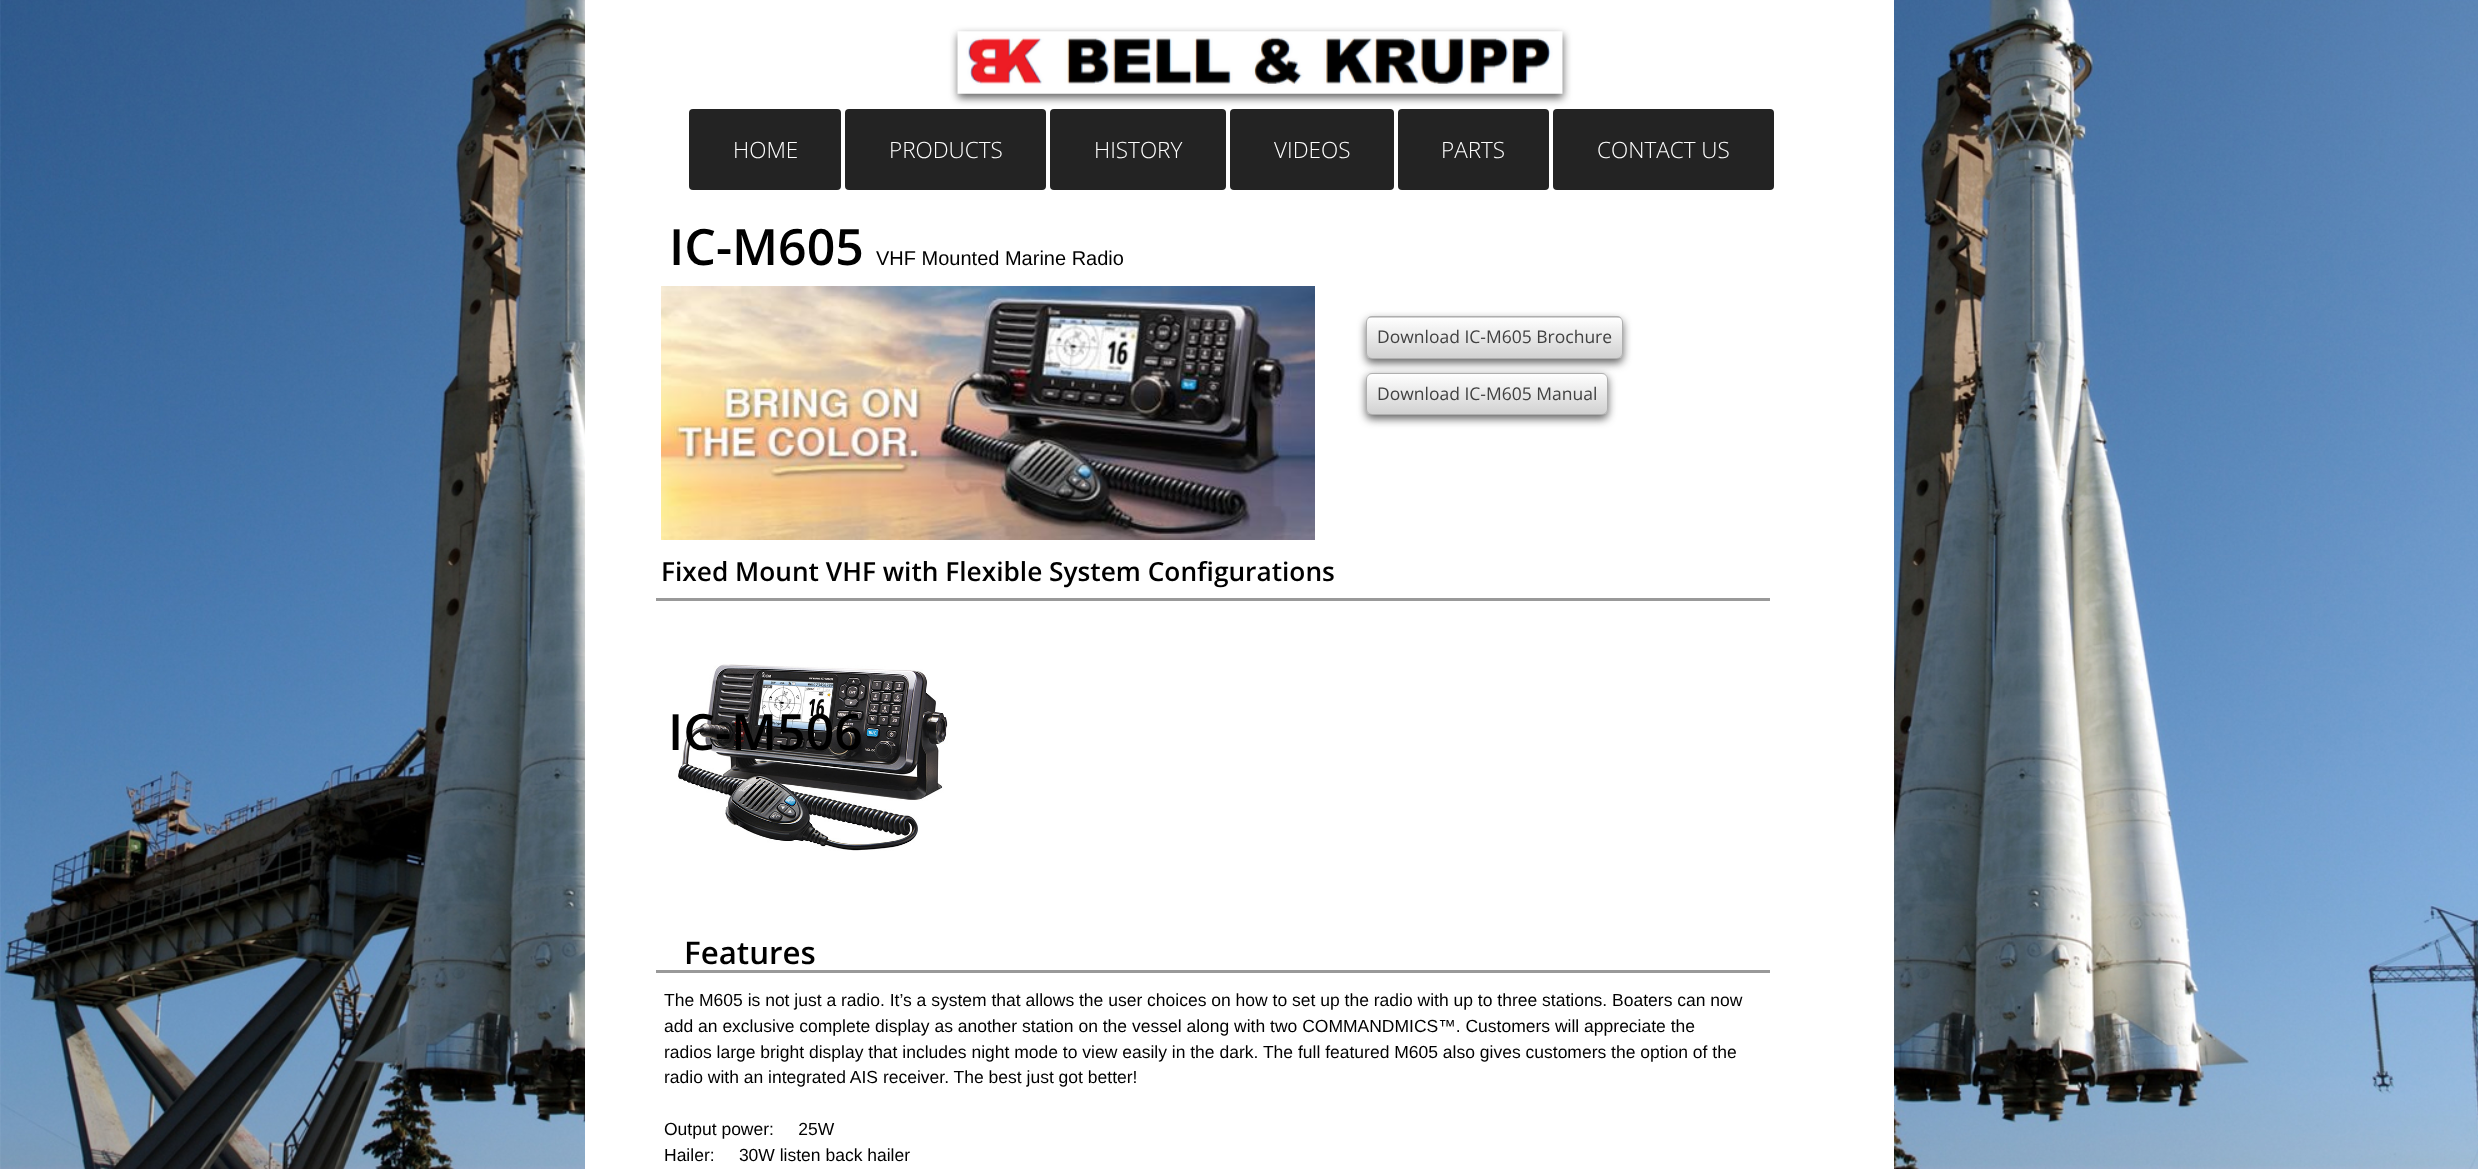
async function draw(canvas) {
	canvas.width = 2478;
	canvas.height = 1169;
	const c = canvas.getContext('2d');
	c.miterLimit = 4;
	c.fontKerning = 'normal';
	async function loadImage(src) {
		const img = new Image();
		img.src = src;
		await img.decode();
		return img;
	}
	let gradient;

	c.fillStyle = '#fff';
	c.fillRect(0, 0, 2478, 1169);
	c.drawImage(await loadImage('img1.png'), 0, 0, 2478, 1169);
	c.fillRect(585, 0, 1309, 1169);
	c.fillStyle = '#323232bf';
	c.filter = 'blur(4.5px)';
	c.beginPath();
	c.rect(958, 35, 605, 63);
	c.fill();
	c.filter = 'none';
	c.drawImage(await loadImage('img2.png'), 957, 31, 606, 63);
	c.fillStyle = '#232323';
	c.beginPath();
	c.roundRect(689, 109, 152, 81, 4);
	c.fill();
	c.font = '300 22.5px Open Sans';
	c.fillStyle = '#fff';
	c.fillText('HOME', 733, 158);
	c.fillStyle = '#232323';
	c.beginPath();
	c.roundRect(845, 109, 201, 81, 4);
	c.fill();
	c.fillStyle = '#fff';
	c.fillText('PRODUCTS', 889, 158);
	c.fillStyle = '#232323';
	c.beginPath();
	c.roundRect(1050, 109, 176, 81, 4);
	c.fill();
	c.fillStyle = '#fff';
	c.fillText('HISTORY', 1094, 158);
	c.fillStyle = '#232323';
	c.beginPath();
	c.roundRect(1230, 109, 164, 81, 4);
	c.fill();
	c.fillStyle = '#fff';
	c.fillText('VIDEOS', 1274, 158);
	c.fillStyle = '#232323';
	c.beginPath();
	c.roundRect(1398, 109, 151, 81, 4);
	c.fill();
	c.fillStyle = '#fff';
	c.fillText('PARTS', 1441, 158);
	c.fillStyle = '#232323';
	c.beginPath();
	c.roundRect(1553, 109, 221, 81, 4);
	c.fill();
	c.fillStyle = '#fff';
	c.fillText('CONTACT US', 1597, 158);
	c.font = '600 50px Open Sans';
	c.fillStyle = '#000';
	c.fillText('IC-M605', 669, 265);
	c.font = '20px Liberation Sans';
	c.fillText('VHF Mounted Marine Radio', 876, 265);
	c.drawImage(await loadImage('img3.png'), 661, 286, 654, 254);
	c.fillStyle = '#323232bf';
	c.filter = 'blur(4.5px)';
	c.beginPath();
	c.roundRect(1366, 376, 242, 43, 6);
	c.fill();
	c.filter = 'none';
	c.save();
	c.beginPath();
	c.roundRect(1366, 373, 242, 42, 6);
	c.clip();
	gradient = c.createLinearGradient(1487, 374, 1487, 414);
	gradient.addColorStop(0, '#fff');
	gradient.addColorStop(1, '#d1d1d1');
	c.fillStyle = gradient;
	c.fillRect(1366, 374, 242, 40);
	c.restore();
	c.beginPath();
	c.roundRect(1366.5, 373.5, 241, 41, 5.5);
	c.strokeStyle = '#afafaf';
	c.stroke();
	c.filter = 'blur(4.5px)';
	c.beginPath();
	c.roundRect(1366, 320, 257, 43, 6);
	c.fill();
	c.filter = 'none';
	c.save();
	c.beginPath();
	c.roundRect(1366, 316, 257, 43, 6);
	c.clip();
	gradient = c.createLinearGradient(1494, 278, 1494, 318);
	gradient.addColorStop(0, '#fff');
	gradient.addColorStop(1, '#d1d1d1');
	c.fillStyle = gradient;
	c.fillRect(1366, 316, 257, 2);
	gradient = c.createLinearGradient(1494, 318, 1494, 358);
	gradient.addColorStop(0, '#fff');
	gradient.addColorStop(1, '#d1d1d1');
	c.fillStyle = gradient;
	c.fillRect(1366, 318, 257, 40);
	c.restore();
	c.beginPath();
	c.roundRect(1366.5, 316.5, 256, 42, 5.5);
	c.stroke();
	c.font = '17.5px Open Sans';
	c.fillStyle = '#414141';
	c.fillText('Download IC-M605 Brochure', 1377, 343);
	c.fillText('Download IC-M605 Manual', 1377, 400);
	c.font = '600 26.25px Open Sans';
	c.fillStyle = '#000';
	c.fillText('Fixed Mount VHF with Flexible System Configurations', 661, 581);
	c.fillStyle = '#999';
	c.fillRect(656, 598, 1114, 3);
	c.drawImage(await loadImage('img4.png'), 678, 664, 270, 187);
	c.font = '600 50px Open Sans';
	c.fillStyle = '#000';
	c.fillText('IC-M506', 668, 750);
	c.font = '600 31.25px Open Sans';
	c.fillText('Features', 684, 964);
	c.fillStyle = '#999';
	c.fillRect(656, 970, 1114, 3);
	c.font = '17.5px Liberation Sans';
	c.fillStyle = '#000';
	for (const [text, x, y] of [
		['The M605 is not just a radio. It’s a system that allows the user choices on how to set up the radio with up to three stations. Boaters can now', 664, 1006],
		['add an exclusive complete display as another station on the vessel along with two COMMANDMICS™. Customers will appreciate the', 664, 1032],
		['radios large bright display that includes night mode to view easily in the dark. The full featured M605 also gives customers the option of the', 664, 1058],
		['radio with an integrated AIS receiver. The best just got better!', 664, 1083],
		['Output power:     25W', 664, 1135],
		['Hailer:     30W listen back hailer', 664, 1161],
	]) {
		c.fillText(text, x, y);
	}
}

draw(document.querySelector('canvas'));
